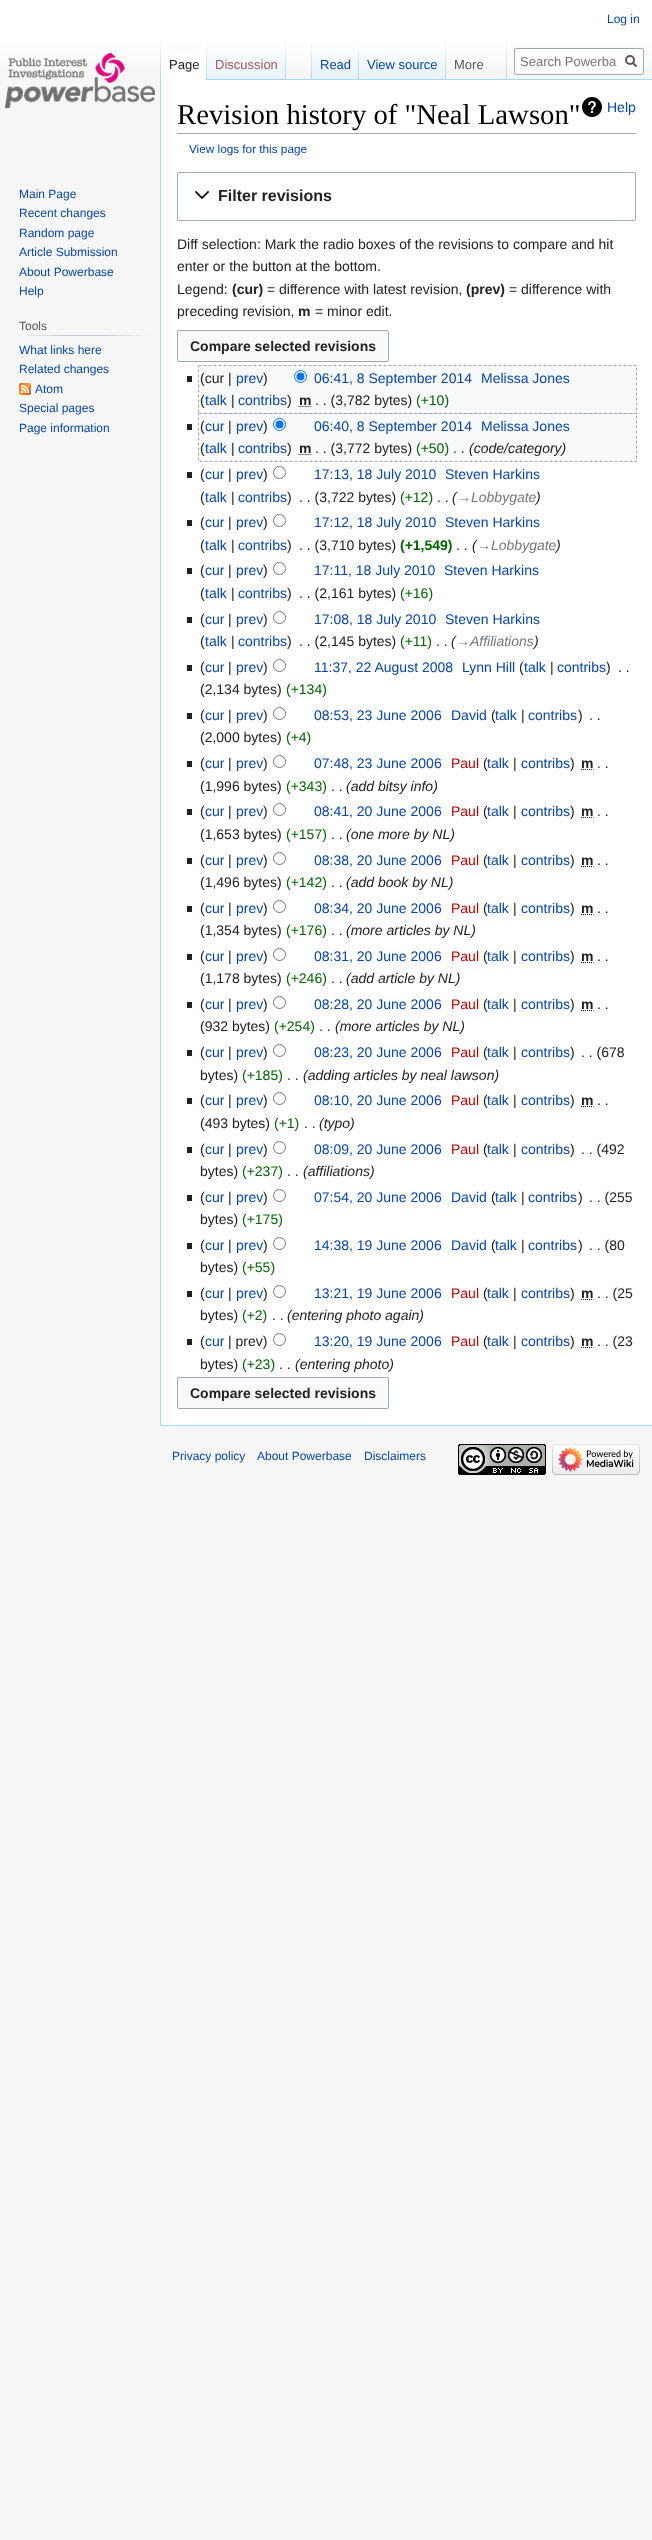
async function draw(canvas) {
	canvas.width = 652;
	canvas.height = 2540;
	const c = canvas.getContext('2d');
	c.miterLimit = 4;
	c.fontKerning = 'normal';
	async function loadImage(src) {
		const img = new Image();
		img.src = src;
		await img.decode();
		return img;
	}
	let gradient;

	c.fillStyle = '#f6f6f6';
	c.fillRect(0, 0, 652, 2540);
	gradient = c.createLinearGradient(326, 0, 326, 80);
	gradient.addColorStop(0.5, '#fff');
	gradient.addColorStop(1, '#f6f6f6');
	c.fillStyle = gradient;
	c.fillRect(0, 0, 652, 69);
	c.font = '12px Liberation Sans';
	c.fillStyle = '#0645ad';
	c.fillText('Log in', 607, 23);
	c.fillStyle = '#a7d7f9';
	c.fillRect(160, 1425, 492, 1);
	c.fillRect(160, 79, 1, 1347);
	gradient = c.createLinearGradient(161, 40, 161, 80);
	gradient.addColorStop(0, '#a7d7f900');
	gradient.addColorStop(1, '#a7d7f9');
	c.fillStyle = gradient;
	c.fillRect(160, 40, 1, 40);
	c.fillStyle = '#fff';
	c.fillRect(161, 51, 45, 29);
	gradient = c.createLinearGradient(207, 40, 207, 80);
	gradient.addColorStop(0, '#fff');
	gradient.addColorStop(1, '#a7d7f9');
	c.fillStyle = gradient;
	c.fillRect(206, 40, 1, 40);
	c.font = '13px Liberation Sans';
	c.fillStyle = '#202122';
	c.fillText('Page', 169, 69);
	gradient = c.createLinearGradient(247, 80, 247, 40);
	gradient.addColorStop(0, '#77c1f6');
	gradient.addColorStop(0.03, '#e8f2f8');
	gradient.addColorStop(1, '#fff');
	c.fillStyle = gradient;
	c.fillRect(207, 46, 79, 34);
	gradient = c.createLinearGradient(286, 40, 286, 80);
	gradient.addColorStop(0, '#a7d7f900');
	gradient.addColorStop(1, '#a7d7f9');
	c.fillStyle = gradient;
	c.fillRect(285, 40, 1, 40);
	c.fillStyle = '#a55858';
	c.fillText('Discussion', 215, 69);
	c.fillStyle = '#a7d7f9';
	c.fillRect(286, 79, 366, 1);
	gradient = c.createLinearGradient(312, 40, 312, 80);
	gradient.addColorStop(0, '#a7d7f900');
	gradient.addColorStop(1, '#a7d7f9');
	c.fillStyle = gradient;
	c.fillRect(311, 40, 1, 40);
	gradient = c.createLinearGradient(336, 80, 336, 40);
	gradient.addColorStop(0, '#77c1f6');
	gradient.addColorStop(0.03, '#e8f2f8');
	gradient.addColorStop(1, '#fff');
	c.fillStyle = gradient;
	c.fillRect(312, 46, 47, 33);
	gradient = c.createLinearGradient(359, 40, 359, 80);
	gradient.addColorStop(0, '#a7d7f900');
	gradient.addColorStop(1, '#a7d7f9');
	c.fillStyle = gradient;
	c.fillRect(358, 40, 1, 40);
	c.fillStyle = '#0645ad';
	c.fillText('Read', 320, 69);
	gradient = c.createLinearGradient(403, 80, 403, 40);
	gradient.addColorStop(0, '#77c1f6');
	gradient.addColorStop(0.03, '#e8f2f8');
	gradient.addColorStop(1, '#fff');
	c.fillStyle = gradient;
	c.fillRect(359, 46, 87, 33);
	gradient = c.createLinearGradient(446, 40, 446, 80);
	gradient.addColorStop(0, '#a7d7f900');
	gradient.addColorStop(1, '#a7d7f9');
	c.fillStyle = gradient;
	c.fillRect(445, 40, 1, 40);
	c.fillStyle = '#0645ad';
	c.fillText('View source', 367, 69);
	gradient = c.createLinearGradient(507, 40, 507, 80);
	gradient.addColorStop(0, '#a7d7f900');
	gradient.addColorStop(1, '#a7d7f9');
	c.fillStyle = gradient;
	c.fillRect(506, 40, 1, 40);
	c.fillStyle = '#54595d';
	c.fillText('More', 454, 69);
	c.fillStyle = '#ffffff80';
	c.beginPath();
	c.roundRect(514.5, 48.5, 129, 26, 1.5);
	c.fill();
	c.strokeStyle = '#a2a9b1';
	c.stroke();
	c.fillStyle = '#72777d';
	c.fillText('Search Powerba', 520, 66);
	c.beginPath();
	c.moveTo(636.5, 66.5);
	c.lineTo(632.5, 62.5);
	c.strokeStyle = '#54595d';
	c.lineWidth = 2;
	c.stroke();
	c.beginPath();
	c.arc(630, 60, 4, 0, 2 * Math.PI);
	c.stroke();
	c.drawImage(await loadImage('img1.png'), 5, 53, 150, 55);
	c.font = '12px Liberation Sans';
	c.fillStyle = '#0645ad';
	for (const [text, x, y] of [
		['Main Page', 19, 198],
		['Recent changes', 19, 217],
		['Random page', 19, 237],
		['Article Submission', 19, 256],
		['About Powerbase', 19, 276],
		['Help', 19, 295],
	]) {
		c.fillText(text, x, y);
	}
	gradient = c.createLinearGradient(19, 336, 150, 336);
	gradient.addColorStop(0, '#f6f6f6');
	gradient.addColorStop(0.33, '#c8ccd1');
	gradient.addColorStop(0.66, '#c8ccd1');
	gradient.addColorStop(1, '#f6f6f6');
	c.fillStyle = gradient;
	c.fillRect(19, 335, 131, 1);
	c.fillStyle = '#54595d';
	c.fillText('Tools', 19, 330);
	c.fillStyle = '#0645ad';
	c.fillText('What links here', 19, 354);
	c.fillText('Related changes', 19, 373);
	c.drawImage(await loadImage('img2.png'), 19, 383, 12, 12);
	for (const [text, x, y] of [
		['Atom', 35, 393],
		['Special pages', 19, 412],
		['Page information', 19, 432],
	]) {
		c.fillText(text, x, y);
	}
	c.fillStyle = '#fff';
	c.fillRect(161, 80, 491, 1345);
	c.fillStyle = '#a2a9b1';
	c.fillRect(177, 133, 459, 1);
	c.font = '28.75px Liberation Serif';
	c.fillStyle = '#000';
	c.fillText('Revision history of "Neal Lawson"', 177, 124);
	c.drawImage(await loadImage('img3.png'), 582, 97, 20, 20);
	c.font = '14px Liberation Sans';
	c.fillStyle = '#0645ad';
	c.fillText('Help', 607, 112);
	c.font = '11.75px Liberation Sans';
	c.fillText('View logs for this page', 189, 153);
	c.beginPath();
	c.roundRect(177.5, 172.5, 458, 48, 1.5);
	c.strokeStyle = '#a2a9b1';
	c.lineWidth = 1;
	c.stroke();
	c.drawImage(await loadImage('img4.png'), 195, 191, 15, 8);
	c.font = 'bold 16px Liberation Sans';
	c.fillStyle = '#202122';
	c.fillText('Filter revisions', 218, 201);
	c.font = '14px Liberation Sans';
	for (const [text, x, y] of [
		['Diff selection: Mark the radio boxes of the revisions to compare and hit', 177, 249],
		['enter or the button at the bottom.', 177, 271],
		['Legend:', 177, 294],
	]) {
		c.fillText(text, x, y);
	}
	c.font = 'bold 14px Liberation Sans';
	c.fillText('(cur)', 232, 294);
	c.font = '14px Liberation Sans';
	c.fillText('= difference with latest revision,', 267, 294);
	c.font = 'bold 14px Liberation Sans';
	c.fillText('(prev)', 466, 294);
	c.font = '14px Liberation Sans';
	c.fillText('= difference with', 509, 294);
	c.fillText('preceding revision,', 177, 316);
	c.font = 'bold 14px Liberation Sans';
	c.fillText('m', 298, 316);
	c.font = '14px Liberation Sans';
	c.fillText('= minor edit.', 315, 316);
	c.fillStyle = '#f8f9fa';
	c.beginPath();
	c.roundRect(177.5, 330.5, 211, 31, 1.5);
	c.fill();
	c.stroke();
	c.font = 'bold 14px Liberation Sans';
	c.fillStyle = '#202122';
	c.fillText('Compare selected revisions', 190, 351);
	c.fillStyle = '#f8f9fa';
	c.fillRect(199, 366, 437, 47);
	c.fillStyle = '#202122';
	c.fillRect(187, 376, 5, 6);
	c.font = '14px Liberation Sans';
	c.fillText('(cur |', 200, 383);
	c.fillStyle = '#0645ad';
	c.fillText('prev', 236, 383);
	c.fillStyle = '#202122';
	c.fillText(')', 263, 383);
	c.fillStyle = '#fff';
	c.beginPath();
	c.arc(300.5, 376.5, 6, 0, 2 * Math.PI);
	c.fill();
	c.strokeStyle = '#0075ff';
	c.stroke();
	c.fillStyle = '#0075ff';
	c.beginPath();
	c.arc(300.5, 376.5, 4, 0, 2 * Math.PI);
	c.fill();
	c.fillStyle = '#0645ad';
	c.fillText('Melissa Jones', 481, 383);
	c.fillStyle = '#202122';
	c.fillText('(', 200, 405);
	c.fillStyle = '#0645ad';
	c.fillText('talk', 205, 405);
	c.fillStyle = '#202122';
	c.fillText('|', 231, 405);
	c.fillStyle = '#0645ad';
	c.fillText('contribs', 238, 405);
	c.fillStyle = '#202122';
	c.fillText(')', 287, 405);
	c.fillStyle = '#0645ad';
	c.fillText('06:41, 8 September 2014', 314, 383);
	c.font = 'bold 14px Liberation Sans';
	c.fillStyle = '#202122';
	c.fillText('m', 299, 405);
	c.beginPath();
	c.moveTo(298.5, 406.5);
	c.lineTo(311, 406.5);
	c.strokeStyle = '#202122';
	c.setLineDash([1, 1]);
	c.stroke();
	c.font = '14px Liberation Sans';
	c.fillText('. . (3,782 bytes)', 315, 405);
	c.fillStyle = '#006400';
	c.fillText('(+10)', 416, 405);
	c.beginPath();
	c.moveTo(198.5, 365.5);
	c.lineTo(636.5, 365.5);
	c.lineTo(636.5, 413.5);
	c.lineTo(198.5, 413.5);
	c.closePath();
	c.strokeStyle = '#a2a9b1';
	c.setLineDash([3, 2]);
	c.stroke();
	c.fillStyle = '#f8f9fa';
	c.fillRect(199, 414, 437, 47);
	c.fillStyle = '#202122';
	c.fillRect(187, 424, 5, 6);
	c.fillText('(', 200, 431);
	c.fillStyle = '#0645ad';
	c.fillText('cur', 205, 431);
	c.fillStyle = '#202122';
	c.fillText('|', 228, 431);
	c.fillStyle = '#0645ad';
	c.fillText('prev', 236, 431);
	c.fillStyle = '#202122';
	c.fillText(')', 263, 431);
	c.fillStyle = '#fff';
	c.beginPath();
	c.arc(279.5, 424.5, 6, 0, 2 * Math.PI);
	c.fill();
	c.strokeStyle = '#0075ff';
	c.setLineDash([]);
	c.stroke();
	c.fillStyle = '#0075ff';
	c.beginPath();
	c.arc(279.5, 424.5, 4, 0, 2 * Math.PI);
	c.fill();
	c.fillStyle = '#0645ad';
	c.fillText('Melissa Jones', 481, 431);
	c.fillStyle = '#202122';
	c.fillText('(', 200, 453);
	c.fillStyle = '#0645ad';
	c.fillText('talk', 205, 453);
	c.fillStyle = '#202122';
	c.fillText('|', 231, 453);
	c.fillStyle = '#0645ad';
	c.fillText('contribs', 238, 453);
	c.fillStyle = '#202122';
	c.fillText(')', 287, 453);
	c.fillStyle = '#0645ad';
	c.fillText('06:40, 8 September 2014', 314, 431);
	c.font = 'bold 14px Liberation Sans';
	c.fillStyle = '#202122';
	c.fillText('m', 299, 453);
	c.beginPath();
	c.moveTo(298.5, 454.5);
	c.lineTo(311, 454.5);
	c.strokeStyle = '#202122';
	c.setLineDash([1, 1]);
	c.stroke();
	c.font = '14px Liberation Sans';
	c.fillText('. . (3,772 bytes)', 315, 453);
	c.fillStyle = '#006400';
	c.fillText('(+50)', 416, 453);
	c.fillStyle = '#202122';
	c.fillText('. .', 453, 453);
	c.font = 'italic 14px Liberation Sans';
	c.fillText('(code/category)', 469, 453);
	c.beginPath();
	c.moveTo(198.5, 413.5);
	c.lineTo(636.5, 413.5);
	c.lineTo(636.5, 461.5);
	c.lineTo(198.5, 461.5);
	c.closePath();
	c.strokeStyle = '#a2a9b1';
	c.setLineDash([3, 2]);
	c.stroke();
	c.fillRect(187, 472, 5, 6);
	c.font = '14px Liberation Sans';
	c.fillText('(', 200, 479);
	c.fillStyle = '#0645ad';
	c.fillText('cur', 205, 479);
	c.fillStyle = '#202122';
	c.fillText('|', 228, 479);
	c.fillStyle = '#0645ad';
	c.fillText('prev', 236, 479);
	c.fillStyle = '#202122';
	c.fillText(')', 263, 479);
	c.beginPath();
	c.arc(279.5, 472.5, 6, 0, 2 * Math.PI);
	c.strokeStyle = '#767676';
	c.setLineDash([]);
	c.stroke();
	c.fillStyle = '#0645ad';
	c.fillText('Steven Harkins', 445, 479);
	c.fillStyle = '#202122';
	c.fillText('(', 200, 502);
	c.fillStyle = '#0645ad';
	c.fillText('talk', 205, 502);
	c.fillStyle = '#202122';
	c.fillText('|', 231, 502);
	c.fillStyle = '#0645ad';
	c.fillText('contribs', 238, 502);
	c.fillStyle = '#202122';
	c.fillText(')', 287, 502);
	c.fillStyle = '#0645ad';
	c.fillText('17:13, 18 July 2010', 314, 479);
	c.fillStyle = '#202122';
	c.fillText('. . (3,722 bytes)', 299, 502);
	c.fillStyle = '#006400';
	c.fillText('(+12)', 400, 502);
	c.fillStyle = '#202122';
	c.fillText('. .', 437, 502);
	c.font = 'italic 14px Liberation Sans';
	c.fillText('(', 452, 502);
	c.fillStyle = '#72777d';
	c.fillText('→Lobbygate', 457, 502);
	c.fillStyle = '#202122';
	c.fillText(')', 536, 502);
	c.fillRect(187, 520, 5, 6);
	c.font = '14px Liberation Sans';
	c.fillText('(', 200, 527);
	c.fillStyle = '#0645ad';
	c.fillText('cur', 205, 527);
	c.fillStyle = '#202122';
	c.fillText('|', 228, 527);
	c.fillStyle = '#0645ad';
	c.fillText('prev', 236, 527);
	c.fillStyle = '#202122';
	c.fillText(')', 263, 527);
	c.beginPath();
	c.arc(279.5, 520.5, 6, 0, 2 * Math.PI);
	c.stroke();
	c.fillStyle = '#0645ad';
	c.fillText('Steven Harkins', 445, 527);
	c.fillStyle = '#202122';
	c.fillText('(', 200, 550);
	c.fillStyle = '#0645ad';
	c.fillText('talk', 205, 550);
	c.fillStyle = '#202122';
	c.fillText('|', 231, 550);
	c.fillStyle = '#0645ad';
	c.fillText('contribs', 238, 550);
	c.fillStyle = '#202122';
	c.fillText(')', 287, 550);
	c.fillStyle = '#0645ad';
	c.fillText('17:12, 18 July 2010', 314, 527);
	c.fillStyle = '#202122';
	c.fillText('. . (3,710 bytes)', 299, 550);
	c.font = 'bold 14px Liberation Sans';
	c.fillStyle = '#006400';
	c.fillText('(+1,549)', 400, 550);
	c.font = '14px Liberation Sans';
	c.fillStyle = '#202122';
	c.fillText('. .', 456, 550);
	c.font = 'italic 14px Liberation Sans';
	c.fillText('(', 472, 550);
	c.fillStyle = '#72777d';
	c.fillText('→Lobbygate', 477, 550);
	c.fillStyle = '#202122';
	c.fillText(')', 556, 550);
	c.fillRect(187, 568, 5, 6);
	c.font = '14px Liberation Sans';
	c.fillText('(', 200, 575);
	c.fillStyle = '#0645ad';
	c.fillText('cur', 205, 575);
	c.fillStyle = '#202122';
	c.fillText('|', 228, 575);
	c.fillStyle = '#0645ad';
	c.fillText('prev', 236, 575);
	c.fillStyle = '#202122';
	c.fillText(')', 263, 575);
	c.beginPath();
	c.arc(279.5, 568.5, 6, 0, 2 * Math.PI);
	c.stroke();
	c.fillStyle = '#0645ad';
	c.fillText('Steven Harkins', 444, 575);
	c.fillStyle = '#202122';
	c.fillText('(', 200, 598);
	c.fillStyle = '#0645ad';
	c.fillText('talk', 205, 598);
	c.fillStyle = '#202122';
	c.fillText('|', 231, 598);
	c.fillStyle = '#0645ad';
	c.fillText('contribs', 238, 598);
	c.fillStyle = '#202122';
	c.fillText(')', 287, 598);
	c.fillStyle = '#0645ad';
	c.fillText('17:11, 18 July 2010', 314, 575);
	c.fillStyle = '#202122';
	c.fillText('. . (2,161 bytes)', 299, 598);
	c.fillStyle = '#006400';
	c.fillText('(+16)', 400, 598);
	c.fillStyle = '#202122';
	c.fillRect(187, 617, 5, 6);
	c.fillText('(', 200, 624);
	c.fillStyle = '#0645ad';
	c.fillText('cur', 205, 624);
	c.fillStyle = '#202122';
	c.fillText('|', 228, 624);
	c.fillStyle = '#0645ad';
	c.fillText('prev', 236, 624);
	c.fillStyle = '#202122';
	c.fillText(')', 263, 624);
	c.beginPath();
	c.arc(279.5, 617.5, 6, 0, 2 * Math.PI);
	c.stroke();
	c.fillStyle = '#0645ad';
	c.fillText('Steven Harkins', 445, 624);
	c.fillStyle = '#202122';
	c.fillText('(', 200, 646);
	c.fillStyle = '#0645ad';
	c.fillText('talk', 205, 646);
	c.fillStyle = '#202122';
	c.fillText('|', 231, 646);
	c.fillStyle = '#0645ad';
	c.fillText('contribs', 238, 646);
	c.fillStyle = '#202122';
	c.fillText(')', 287, 646);
	c.fillStyle = '#0645ad';
	c.fillText('17:08, 18 July 2010', 314, 624);
	c.fillStyle = '#202122';
	c.fillText('. . (2,145 bytes)', 299, 646);
	c.fillStyle = '#006400';
	c.fillText('(+11)', 400, 646);
	c.fillStyle = '#202122';
	c.fillText('. .', 436, 646);
	c.font = 'italic 14px Liberation Sans';
	c.fillText('(', 451, 646);
	c.fillStyle = '#72777d';
	c.fillText('→Affiliations', 456, 646);
	c.fillStyle = '#202122';
	c.fillText(')', 534, 646);
	c.fillRect(187, 665, 5, 6);
	c.font = '14px Liberation Sans';
	c.fillText('(', 200, 672);
	c.fillStyle = '#0645ad';
	c.fillText('cur', 205, 672);
	c.fillStyle = '#202122';
	c.fillText('|', 228, 672);
	c.fillStyle = '#0645ad';
	c.fillText('prev', 236, 672);
	c.fillStyle = '#202122';
	c.fillText(')', 263, 672);
	c.beginPath();
	c.arc(279.5, 665.5, 6, 0, 2 * Math.PI);
	c.stroke();
	c.fillStyle = '#0645ad';
	c.fillText('11:37, 22 August 2008', 314, 672);
	c.fillText('Lynn Hill', 462, 672);
	c.fillStyle = '#202122';
	c.fillText('(', 519, 672);
	c.fillStyle = '#0645ad';
	c.fillText('talk', 524, 672);
	c.fillStyle = '#202122';
	c.fillText('|', 550, 672);
	c.fillStyle = '#0645ad';
	c.fillText('contribs', 557, 672);
	c.fillStyle = '#202122';
	for (const [text, x, y] of [
		[')', 606, 672],
		['. .', 618, 672],
		['(2,134 bytes)', 200, 694],
	]) {
		c.fillText(text, x, y);
	}
	c.fillStyle = '#006400';
	c.fillText('(+134)', 286, 694);
	c.fillStyle = '#202122';
	c.fillRect(187, 713, 5, 6);
	c.fillText('(', 200, 720);
	c.fillStyle = '#0645ad';
	c.fillText('cur', 205, 720);
	c.fillStyle = '#202122';
	c.fillText('|', 228, 720);
	c.fillStyle = '#0645ad';
	c.fillText('prev', 236, 720);
	c.fillStyle = '#202122';
	c.fillText(')', 263, 720);
	c.beginPath();
	c.arc(279.5, 713.5, 6, 0, 2 * Math.PI);
	c.stroke();
	c.fillStyle = '#0645ad';
	c.fillText('08:53, 23 June 2006', 314, 720);
	c.fillText('David', 451, 720);
	c.fillStyle = '#202122';
	c.fillText('(', 491, 720);
	c.fillStyle = '#0645ad';
	c.fillText('talk', 495, 720);
	c.fillStyle = '#202122';
	c.fillText('|', 521, 720);
	c.fillStyle = '#0645ad';
	c.fillText('contribs', 528, 720);
	c.fillStyle = '#202122';
	for (const [text, x, y] of [
		[')', 578, 720],
		['. .', 589, 720],
		['(2,000 bytes)', 200, 742],
	]) {
		c.fillText(text, x, y);
	}
	c.fillStyle = '#006400';
	c.fillText('(+4)', 286, 742);
	c.fillStyle = '#202122';
	c.fillRect(187, 761, 5, 6);
	c.fillText('(', 200, 768);
	c.fillStyle = '#0645ad';
	c.fillText('cur', 205, 768);
	c.fillStyle = '#202122';
	c.fillText('|', 228, 768);
	c.fillStyle = '#0645ad';
	c.fillText('prev', 236, 768);
	c.fillStyle = '#202122';
	c.fillText(')', 263, 768);
	c.beginPath();
	c.arc(279.5, 761.5, 6, 0, 2 * Math.PI);
	c.stroke();
	c.fillStyle = '#0645ad';
	c.fillText('07:48, 23 June 2006', 314, 768);
	c.fillStyle = '#ba0000';
	c.fillText('Paul', 451, 768);
	c.fillStyle = '#202122';
	c.fillText('(', 483, 768);
	c.fillStyle = '#0645ad';
	c.fillText('talk', 487, 768);
	c.fillStyle = '#202122';
	c.fillText('|', 513, 768);
	c.fillStyle = '#0645ad';
	c.fillText('contribs', 521, 768);
	c.fillStyle = '#202122';
	c.fillText(')', 570, 768);
	c.font = 'bold 14px Liberation Sans';
	c.fillText('m', 581, 768);
	c.beginPath();
	c.moveTo(581, 769.5);
	c.lineTo(593.5, 769.5);
	c.strokeStyle = '#202122';
	c.setLineDash([1, 1]);
	c.stroke();
	c.font = '14px Liberation Sans';
	c.fillText('. .', 597, 768);
	c.fillText('(1,996 bytes)', 200, 791);
	c.fillStyle = '#006400';
	c.fillText('(+343)', 286, 791);
	c.fillStyle = '#202122';
	c.fillText('. .', 331, 791);
	c.font = 'italic 14px Liberation Sans';
	c.fillText('(add bitsy info)', 346, 791);
	c.fillRect(187, 809, 5, 6);
	c.font = '14px Liberation Sans';
	c.fillText('(', 200, 816);
	c.fillStyle = '#0645ad';
	c.fillText('cur', 205, 816);
	c.fillStyle = '#202122';
	c.fillText('|', 228, 816);
	c.fillStyle = '#0645ad';
	c.fillText('prev', 236, 816);
	c.fillStyle = '#202122';
	c.fillText(')', 263, 816);
	c.beginPath();
	c.arc(279.5, 809.5, 6, 0, 2 * Math.PI);
	c.strokeStyle = '#767676';
	c.setLineDash([]);
	c.stroke();
	c.fillStyle = '#0645ad';
	c.fillText('08:41, 20 June 2006', 314, 816);
	c.fillStyle = '#ba0000';
	c.fillText('Paul', 451, 816);
	c.fillStyle = '#202122';
	c.fillText('(', 483, 816);
	c.fillStyle = '#0645ad';
	c.fillText('talk', 487, 816);
	c.fillStyle = '#202122';
	c.fillText('|', 513, 816);
	c.fillStyle = '#0645ad';
	c.fillText('contribs', 521, 816);
	c.fillStyle = '#202122';
	c.fillText(')', 570, 816);
	c.font = 'bold 14px Liberation Sans';
	c.fillText('m', 581, 816);
	c.beginPath();
	c.moveTo(581, 817.5);
	c.lineTo(593.5, 817.5);
	c.strokeStyle = '#202122';
	c.setLineDash([1, 1]);
	c.stroke();
	c.font = '14px Liberation Sans';
	c.fillText('. .', 597, 816);
	c.fillText('(1,653 bytes)', 200, 839);
	c.fillStyle = '#006400';
	c.fillText('(+157)', 286, 839);
	c.fillStyle = '#202122';
	c.fillText('. .', 331, 839);
	c.font = 'italic 14px Liberation Sans';
	c.fillText('(one more by NL)', 346, 839);
	c.fillRect(187, 858, 5, 6);
	c.font = '14px Liberation Sans';
	c.fillText('(', 200, 865);
	c.fillStyle = '#0645ad';
	c.fillText('cur', 205, 865);
	c.fillStyle = '#202122';
	c.fillText('|', 228, 865);
	c.fillStyle = '#0645ad';
	c.fillText('prev', 236, 865);
	c.fillStyle = '#202122';
	c.fillText(')', 263, 865);
	c.beginPath();
	c.arc(279.5, 858.5, 6, 0, 2 * Math.PI);
	c.strokeStyle = '#767676';
	c.setLineDash([]);
	c.stroke();
	c.fillStyle = '#0645ad';
	c.fillText('08:38, 20 June 2006', 314, 865);
	c.fillStyle = '#ba0000';
	c.fillText('Paul', 451, 865);
	c.fillStyle = '#202122';
	c.fillText('(', 483, 865);
	c.fillStyle = '#0645ad';
	c.fillText('talk', 487, 865);
	c.fillStyle = '#202122';
	c.fillText('|', 513, 865);
	c.fillStyle = '#0645ad';
	c.fillText('contribs', 521, 865);
	c.fillStyle = '#202122';
	c.fillText(')', 570, 865);
	c.font = 'bold 14px Liberation Sans';
	c.fillText('m', 581, 865);
	c.beginPath();
	c.moveTo(581, 866.5);
	c.lineTo(593.5, 866.5);
	c.strokeStyle = '#202122';
	c.setLineDash([1, 1]);
	c.stroke();
	c.font = '14px Liberation Sans';
	c.fillText('. .', 597, 865);
	c.fillText('(1,496 bytes)', 200, 887);
	c.fillStyle = '#006400';
	c.fillText('(+142)', 286, 887);
	c.fillStyle = '#202122';
	c.fillText('. .', 331, 887);
	c.font = 'italic 14px Liberation Sans';
	c.fillText('(add book by NL)', 346, 887);
	c.fillRect(187, 906, 5, 6);
	c.font = '14px Liberation Sans';
	c.fillText('(', 200, 913);
	c.fillStyle = '#0645ad';
	c.fillText('cur', 205, 913);
	c.fillStyle = '#202122';
	c.fillText('|', 228, 913);
	c.fillStyle = '#0645ad';
	c.fillText('prev', 236, 913);
	c.fillStyle = '#202122';
	c.fillText(')', 263, 913);
	c.beginPath();
	c.arc(279.5, 906.5, 6, 0, 2 * Math.PI);
	c.strokeStyle = '#767676';
	c.setLineDash([]);
	c.stroke();
	c.fillStyle = '#0645ad';
	c.fillText('08:34, 20 June 2006', 314, 913);
	c.fillStyle = '#ba0000';
	c.fillText('Paul', 451, 913);
	c.fillStyle = '#202122';
	c.fillText('(', 483, 913);
	c.fillStyle = '#0645ad';
	c.fillText('talk', 487, 913);
	c.fillStyle = '#202122';
	c.fillText('|', 513, 913);
	c.fillStyle = '#0645ad';
	c.fillText('contribs', 521, 913);
	c.fillStyle = '#202122';
	c.fillText(')', 570, 913);
	c.font = 'bold 14px Liberation Sans';
	c.fillText('m', 581, 913);
	c.beginPath();
	c.moveTo(581, 914.5);
	c.lineTo(593.5, 914.5);
	c.strokeStyle = '#202122';
	c.setLineDash([1, 1]);
	c.stroke();
	c.font = '14px Liberation Sans';
	c.fillText('. .', 597, 913);
	c.fillText('(1,354 bytes)', 200, 935);
	c.fillStyle = '#006400';
	c.fillText('(+176)', 286, 935);
	c.fillStyle = '#202122';
	c.fillText('. .', 331, 935);
	c.font = 'italic 14px Liberation Sans';
	c.fillText('(more articles by NL)', 346, 935);
	c.fillRect(187, 954, 5, 6);
	c.font = '14px Liberation Sans';
	c.fillText('(', 200, 961);
	c.fillStyle = '#0645ad';
	c.fillText('cur', 205, 961);
	c.fillStyle = '#202122';
	c.fillText('|', 228, 961);
	c.fillStyle = '#0645ad';
	c.fillText('prev', 236, 961);
	c.fillStyle = '#202122';
	c.fillText(')', 263, 961);
	c.beginPath();
	c.arc(279.5, 954.5, 6, 0, 2 * Math.PI);
	c.strokeStyle = '#767676';
	c.setLineDash([]);
	c.stroke();
	c.fillStyle = '#0645ad';
	c.fillText('08:31, 20 June 2006', 314, 961);
	c.fillStyle = '#ba0000';
	c.fillText('Paul', 451, 961);
	c.fillStyle = '#202122';
	c.fillText('(', 483, 961);
	c.fillStyle = '#0645ad';
	c.fillText('talk', 487, 961);
	c.fillStyle = '#202122';
	c.fillText('|', 513, 961);
	c.fillStyle = '#0645ad';
	c.fillText('contribs', 521, 961);
	c.fillStyle = '#202122';
	c.fillText(')', 570, 961);
	c.font = 'bold 14px Liberation Sans';
	c.fillText('m', 581, 961);
	c.beginPath();
	c.moveTo(581, 962.5);
	c.lineTo(593.5, 962.5);
	c.strokeStyle = '#202122';
	c.setLineDash([1, 1]);
	c.stroke();
	c.font = '14px Liberation Sans';
	c.fillText('. .', 597, 961);
	c.fillText('(1,178 bytes)', 200, 983);
	c.fillStyle = '#006400';
	c.fillText('(+246)', 286, 983);
	c.fillStyle = '#202122';
	c.fillText('. .', 331, 983);
	c.font = 'italic 14px Liberation Sans';
	c.fillText('(add article by NL)', 346, 983);
	c.fillRect(187, 1002, 5, 6);
	c.font = '14px Liberation Sans';
	c.fillText('(', 200, 1009);
	c.fillStyle = '#0645ad';
	c.fillText('cur', 205, 1009);
	c.fillStyle = '#202122';
	c.fillText('|', 228, 1009);
	c.fillStyle = '#0645ad';
	c.fillText('prev', 236, 1009);
	c.fillStyle = '#202122';
	c.fillText(')', 263, 1009);
	c.beginPath();
	c.arc(279.5, 1002.5, 6, 0, 2 * Math.PI);
	c.strokeStyle = '#767676';
	c.setLineDash([]);
	c.stroke();
	c.fillStyle = '#0645ad';
	c.fillText('08:28, 20 June 2006', 314, 1009);
	c.fillStyle = '#ba0000';
	c.fillText('Paul', 451, 1009);
	c.fillStyle = '#202122';
	c.fillText('(', 483, 1009);
	c.fillStyle = '#0645ad';
	c.fillText('talk', 487, 1009);
	c.fillStyle = '#202122';
	c.fillText('|', 513, 1009);
	c.fillStyle = '#0645ad';
	c.fillText('contribs', 521, 1009);
	c.fillStyle = '#202122';
	c.fillText(')', 570, 1009);
	c.font = 'bold 14px Liberation Sans';
	c.fillText('m', 581, 1009);
	c.beginPath();
	c.moveTo(581, 1010.5);
	c.lineTo(593.5, 1010.5);
	c.strokeStyle = '#202122';
	c.setLineDash([1, 1]);
	c.stroke();
	c.font = '14px Liberation Sans';
	c.fillText('. .', 597, 1009);
	c.fillText('(932 bytes)', 200, 1031);
	c.fillStyle = '#006400';
	c.fillText('(+254)', 274, 1031);
	c.fillStyle = '#202122';
	c.fillText('. .', 319, 1031);
	c.font = 'italic 14px Liberation Sans';
	c.fillText('(more articles by NL)', 335, 1031);
	c.fillRect(187, 1050, 5, 6);
	c.font = '14px Liberation Sans';
	c.fillText('(', 200, 1057);
	c.fillStyle = '#0645ad';
	c.fillText('cur', 205, 1057);
	c.fillStyle = '#202122';
	c.fillText('|', 228, 1057);
	c.fillStyle = '#0645ad';
	c.fillText('prev', 236, 1057);
	c.fillStyle = '#202122';
	c.fillText(')', 263, 1057);
	c.beginPath();
	c.arc(279.5, 1050.5, 6, 0, 2 * Math.PI);
	c.strokeStyle = '#767676';
	c.setLineDash([]);
	c.stroke();
	c.fillStyle = '#0645ad';
	c.fillText('08:23, 20 June 2006', 314, 1057);
	c.fillStyle = '#ba0000';
	c.fillText('Paul', 451, 1057);
	c.fillStyle = '#202122';
	c.fillText('(', 483, 1057);
	c.fillStyle = '#0645ad';
	c.fillText('talk', 487, 1057);
	c.fillStyle = '#202122';
	c.fillText('|', 513, 1057);
	c.fillStyle = '#0645ad';
	c.fillText('contribs', 521, 1057);
	c.fillStyle = '#202122';
	for (const [text, x, y] of [
		[')', 570, 1057],
		['. . (678', 581, 1057],
		['bytes)', 200, 1080],
	]) {
		c.fillText(text, x, y);
	}
	c.fillStyle = '#006400';
	c.fillText('(+185)', 242, 1080);
	c.fillStyle = '#202122';
	c.fillText('. .', 287, 1080);
	c.font = 'italic 14px Liberation Sans';
	c.fillText('(adding articles by neal lawson)', 303, 1080);
	c.fillRect(187, 1098, 5, 6);
	c.font = '14px Liberation Sans';
	c.fillText('(', 200, 1105);
	c.fillStyle = '#0645ad';
	c.fillText('cur', 205, 1105);
	c.fillStyle = '#202122';
	c.fillText('|', 228, 1105);
	c.fillStyle = '#0645ad';
	c.fillText('prev', 236, 1105);
	c.fillStyle = '#202122';
	c.fillText(')', 263, 1105);
	c.beginPath();
	c.arc(279.5, 1098.5, 6, 0, 2 * Math.PI);
	c.stroke();
	c.fillStyle = '#0645ad';
	c.fillText('08:10, 20 June 2006', 314, 1105);
	c.fillStyle = '#ba0000';
	c.fillText('Paul', 451, 1105);
	c.fillStyle = '#202122';
	c.fillText('(', 483, 1105);
	c.fillStyle = '#0645ad';
	c.fillText('talk', 487, 1105);
	c.fillStyle = '#202122';
	c.fillText('|', 513, 1105);
	c.fillStyle = '#0645ad';
	c.fillText('contribs', 521, 1105);
	c.fillStyle = '#202122';
	c.fillText(')', 570, 1105);
	c.font = 'bold 14px Liberation Sans';
	c.fillText('m', 581, 1105);
	c.beginPath();
	c.moveTo(581, 1106.5);
	c.lineTo(593.5, 1106.5);
	c.strokeStyle = '#202122';
	c.setLineDash([1, 1]);
	c.stroke();
	c.font = '14px Liberation Sans';
	c.fillText('. .', 597, 1105);
	c.fillText('(493 bytes)', 200, 1128);
	c.fillStyle = '#006400';
	c.fillText('(+1)', 274, 1128);
	c.fillStyle = '#202122';
	c.fillText('. .', 304, 1128);
	c.font = 'italic 14px Liberation Sans';
	c.fillText('(typo)', 319, 1128);
	c.fillRect(187, 1147, 5, 6);
	c.font = '14px Liberation Sans';
	c.fillText('(', 200, 1154);
	c.fillStyle = '#0645ad';
	c.fillText('cur', 205, 1154);
	c.fillStyle = '#202122';
	c.fillText('|', 228, 1154);
	c.fillStyle = '#0645ad';
	c.fillText('prev', 236, 1154);
	c.fillStyle = '#202122';
	c.fillText(')', 263, 1154);
	c.beginPath();
	c.arc(279.5, 1147.5, 6, 0, 2 * Math.PI);
	c.strokeStyle = '#767676';
	c.setLineDash([]);
	c.stroke();
	c.fillStyle = '#0645ad';
	c.fillText('08:09, 20 June 2006', 314, 1154);
	c.fillStyle = '#ba0000';
	c.fillText('Paul', 451, 1154);
	c.fillStyle = '#202122';
	c.fillText('(', 483, 1154);
	c.fillStyle = '#0645ad';
	c.fillText('talk', 487, 1154);
	c.fillStyle = '#202122';
	c.fillText('|', 513, 1154);
	c.fillStyle = '#0645ad';
	c.fillText('contribs', 521, 1154);
	c.fillStyle = '#202122';
	for (const [text, x, y] of [
		[')', 570, 1154],
		['. . (492', 581, 1154],
		['bytes)', 200, 1176],
	]) {
		c.fillText(text, x, y);
	}
	c.fillStyle = '#006400';
	c.fillText('(+237)', 242, 1176);
	c.fillStyle = '#202122';
	c.fillText('. .', 287, 1176);
	c.font = 'italic 14px Liberation Sans';
	c.fillText('(affiliations)', 303, 1176);
	c.fillRect(187, 1195, 5, 6);
	c.font = '14px Liberation Sans';
	c.fillText('(', 200, 1202);
	c.fillStyle = '#0645ad';
	c.fillText('cur', 205, 1202);
	c.fillStyle = '#202122';
	c.fillText('|', 228, 1202);
	c.fillStyle = '#0645ad';
	c.fillText('prev', 236, 1202);
	c.fillStyle = '#202122';
	c.fillText(')', 263, 1202);
	c.beginPath();
	c.arc(279.5, 1195.5, 6, 0, 2 * Math.PI);
	c.stroke();
	c.fillStyle = '#0645ad';
	c.fillText('07:54, 20 June 2006', 314, 1202);
	c.fillText('David', 451, 1202);
	c.fillStyle = '#202122';
	c.fillText('(', 491, 1202);
	c.fillStyle = '#0645ad';
	c.fillText('talk', 495, 1202);
	c.fillStyle = '#202122';
	c.fillText('|', 521, 1202);
	c.fillStyle = '#0645ad';
	c.fillText('contribs', 528, 1202);
	c.fillStyle = '#202122';
	for (const [text, x, y] of [
		[')', 578, 1202],
		['. . (255', 589, 1202],
		['bytes)', 200, 1224],
	]) {
		c.fillText(text, x, y);
	}
	c.fillStyle = '#006400';
	c.fillText('(+175)', 242, 1224);
	c.fillStyle = '#202122';
	c.fillRect(187, 1243, 5, 6);
	c.fillText('(', 200, 1250);
	c.fillStyle = '#0645ad';
	c.fillText('cur', 205, 1250);
	c.fillStyle = '#202122';
	c.fillText('|', 228, 1250);
	c.fillStyle = '#0645ad';
	c.fillText('prev', 236, 1250);
	c.fillStyle = '#202122';
	c.fillText(')', 263, 1250);
	c.beginPath();
	c.arc(279.5, 1243.5, 6, 0, 2 * Math.PI);
	c.stroke();
	c.fillStyle = '#0645ad';
	c.fillText('14:38, 19 June 2006', 314, 1250);
	c.fillText('David', 451, 1250);
	c.fillStyle = '#202122';
	c.fillText('(', 491, 1250);
	c.fillStyle = '#0645ad';
	c.fillText('talk', 495, 1250);
	c.fillStyle = '#202122';
	c.fillText('|', 521, 1250);
	c.fillStyle = '#0645ad';
	c.fillText('contribs', 528, 1250);
	c.fillStyle = '#202122';
	for (const [text, x, y] of [
		[')', 578, 1250],
		['. . (80', 589, 1250],
		['bytes)', 200, 1272],
	]) {
		c.fillText(text, x, y);
	}
	c.fillStyle = '#006400';
	c.fillText('(+55)', 242, 1272);
	c.fillStyle = '#202122';
	c.fillRect(187, 1291, 5, 6);
	c.fillText('(', 200, 1298);
	c.fillStyle = '#0645ad';
	c.fillText('cur', 205, 1298);
	c.fillStyle = '#202122';
	c.fillText('|', 228, 1298);
	c.fillStyle = '#0645ad';
	c.fillText('prev', 236, 1298);
	c.fillStyle = '#202122';
	c.fillText(')', 263, 1298);
	c.beginPath();
	c.arc(279.5, 1291.5, 6, 0, 2 * Math.PI);
	c.stroke();
	c.fillStyle = '#0645ad';
	c.fillText('13:21, 19 June 2006', 314, 1298);
	c.fillStyle = '#ba0000';
	c.fillText('Paul', 451, 1298);
	c.fillStyle = '#202122';
	c.fillText('(', 483, 1298);
	c.fillStyle = '#0645ad';
	c.fillText('talk', 487, 1298);
	c.fillStyle = '#202122';
	c.fillText('|', 513, 1298);
	c.fillStyle = '#0645ad';
	c.fillText('contribs', 521, 1298);
	c.fillStyle = '#202122';
	c.fillText(')', 570, 1298);
	c.font = 'bold 14px Liberation Sans';
	c.fillText('m', 581, 1298);
	c.beginPath();
	c.moveTo(581, 1299.5);
	c.lineTo(593.5, 1299.5);
	c.strokeStyle = '#202122';
	c.setLineDash([1, 1]);
	c.stroke();
	c.font = '14px Liberation Sans';
	c.fillText('. . (25', 597, 1298);
	c.fillText('bytes)', 200, 1320);
	c.fillStyle = '#006400';
	c.fillText('(+2)', 242, 1320);
	c.fillStyle = '#202122';
	c.fillText('. .', 272, 1320);
	c.font = 'italic 14px Liberation Sans';
	c.fillText('(entering photo again)', 287, 1320);
	c.fillRect(187, 1339, 5, 6);
	c.font = '14px Liberation Sans';
	c.fillText('(', 200, 1346);
	c.fillStyle = '#0645ad';
	c.fillText('cur', 205, 1346);
	c.fillStyle = '#202122';
	c.fillText('| prev)', 228, 1346);
	c.beginPath();
	c.arc(279.5, 1339.5, 6, 0, 2 * Math.PI);
	c.strokeStyle = '#767676';
	c.setLineDash([]);
	c.stroke();
	c.fillStyle = '#0645ad';
	c.fillText('13:20, 19 June 2006', 314, 1346);
	c.fillStyle = '#ba0000';
	c.fillText('Paul', 451, 1346);
	c.fillStyle = '#202122';
	c.fillText('(', 483, 1346);
	c.fillStyle = '#0645ad';
	c.fillText('talk', 487, 1346);
	c.fillStyle = '#202122';
	c.fillText('|', 513, 1346);
	c.fillStyle = '#0645ad';
	c.fillText('contribs', 521, 1346);
	c.fillStyle = '#202122';
	c.fillText(')', 570, 1346);
	c.font = 'bold 14px Liberation Sans';
	c.fillText('m', 581, 1346);
	c.beginPath();
	c.moveTo(581, 1347.5);
	c.lineTo(593.5, 1347.5);
	c.strokeStyle = '#202122';
	c.setLineDash([1, 1]);
	c.stroke();
	c.font = '14px Liberation Sans';
	c.fillText('. . (23', 597, 1346);
	c.fillText('bytes)', 200, 1369);
	c.fillStyle = '#006400';
	c.fillText('(+23)', 242, 1369);
	c.fillStyle = '#202122';
	c.fillText('. .', 279, 1369);
	c.font = 'italic 14px Liberation Sans';
	c.fillText('(entering photo)', 295, 1369);
	c.fillStyle = '#f8f9fa';
	c.beginPath();
	c.roundRect(177.5, 1377.5, 211, 31, 1.5);
	c.fill();
	c.strokeStyle = '#a2a9b1';
	c.setLineDash([]);
	c.stroke();
	c.font = 'bold 14px Liberation Sans';
	c.fillStyle = '#202122';
	c.fillText('Compare selected revisions', 190, 1398);
	c.font = '12px Liberation Sans';
	c.fillStyle = '#0645ad';
	for (const [text, x, y] of [
		['Privacy policy', 172, 1460],
		['About Powerbase', 257, 1460],
		['Disclaimers', 364, 1460],
	]) {
		c.fillText(text, x, y);
	}
	c.drawImage(await loadImage('img5.png'), 458, 1444, 88, 31);
	c.drawImage(await loadImage('img6.png'), 552, 1444, 88, 31);
}

draw(document.querySelector('canvas'));
